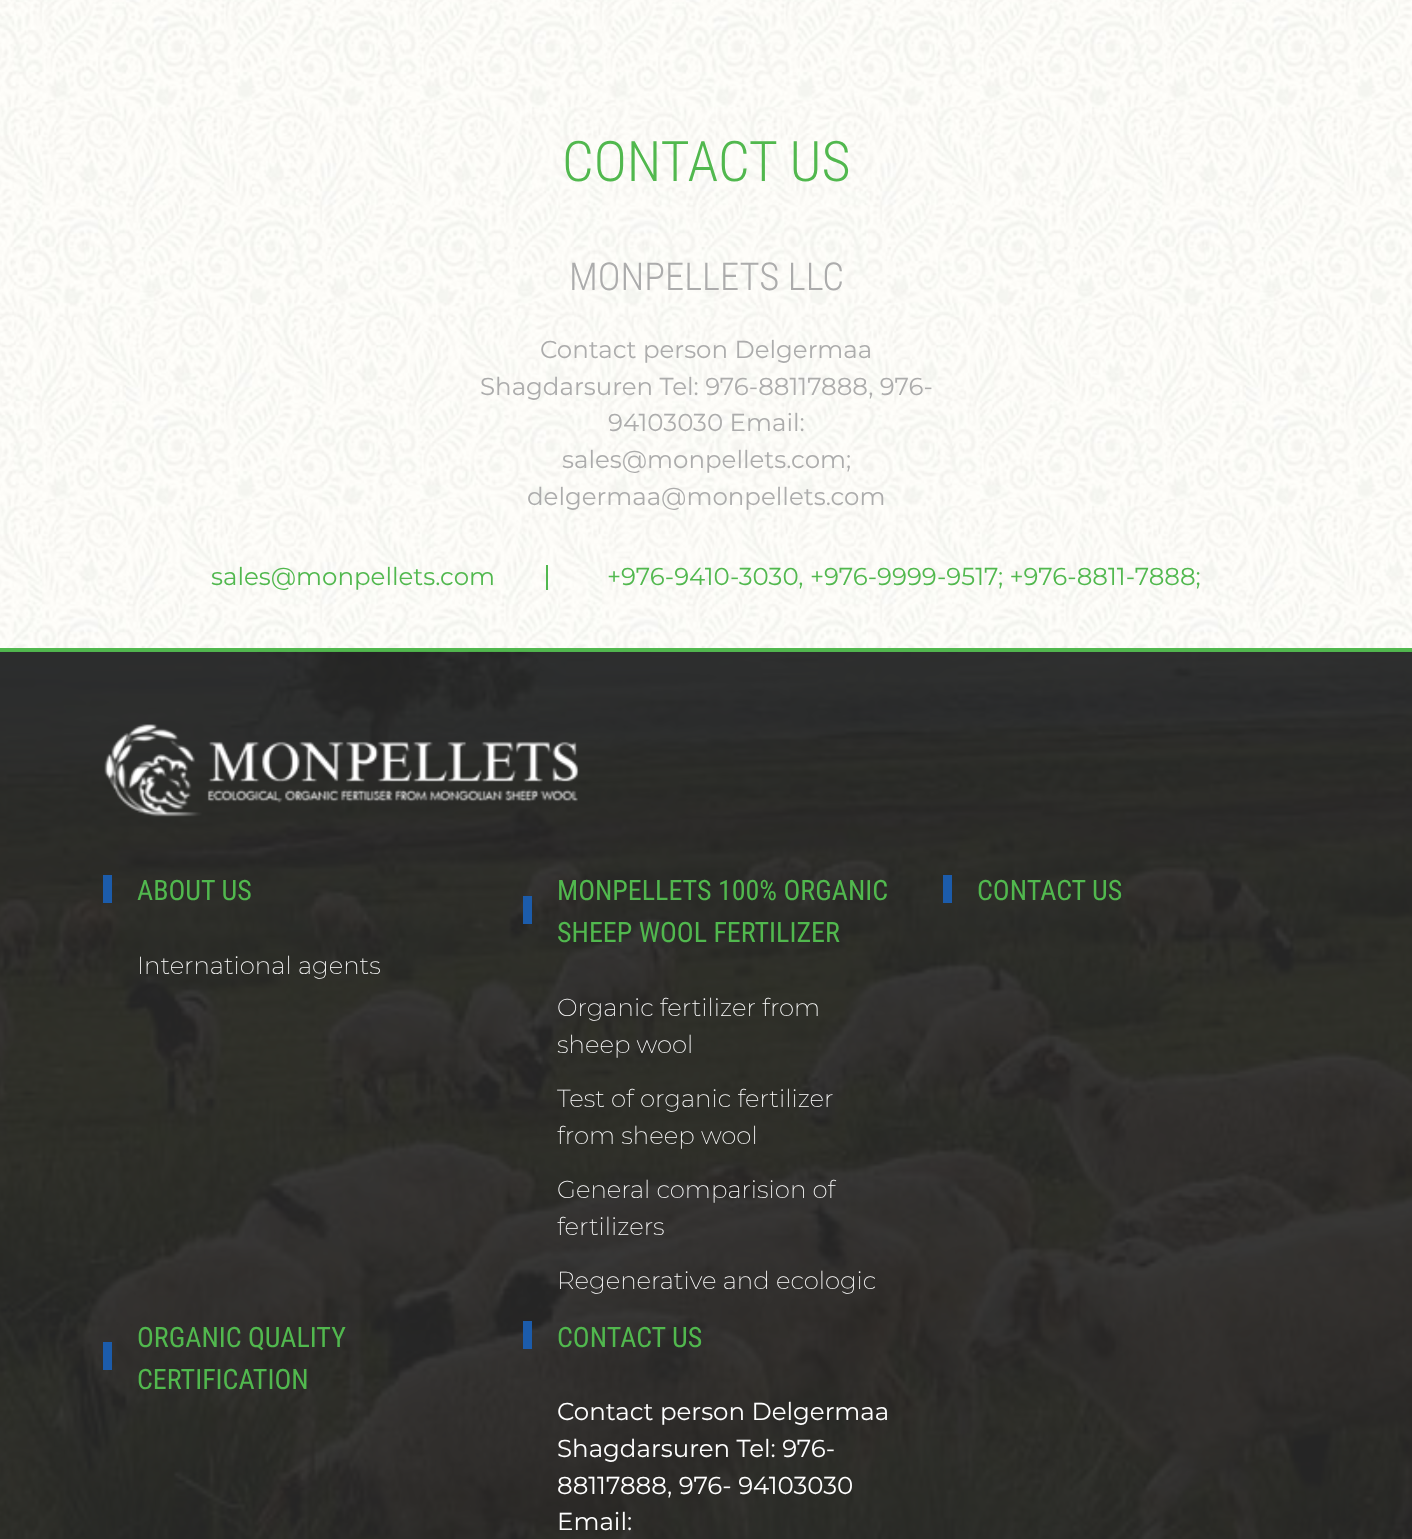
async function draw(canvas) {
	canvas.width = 1412;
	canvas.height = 1539;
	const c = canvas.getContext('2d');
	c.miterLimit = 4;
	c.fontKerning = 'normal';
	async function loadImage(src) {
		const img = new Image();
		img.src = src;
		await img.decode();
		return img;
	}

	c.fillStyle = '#fff';
	c.fillRect(0, 0, 1412, 1539);
	c.drawImage(await loadImage('img1.png'), 0, 0, 1412, 648);
	c.font = '300 56px Roboto Condensed';
	c.fillStyle = '#51b84e';
	c.fillText('CONTACT US', 562, 181);
	c.font = '300 38.5px Roboto Condensed';
	c.fillStyle = '#acacac';
	c.fillText('MONPELLETS LLC', 569, 290);
	c.font = '24.5px Montserrat';
	for (const [text, x, y] of [
		['Contact person Delgermaa', 540, 358],
		['Shagdarsuren Tel: 976-88117888, 976-', 480, 395],
		['94103030 Email:', 608, 431],
		['sales@monpellets.com;', 562, 468],
		['delgermaa@monpellets.com', 527, 505],
	]) {
		c.fillText(text, x, y);
	}
	c.fillStyle = '#51b84e';
	c.fillText('sales@monpellets.com', 211, 585);
	c.fillRect(546, 565, 2, 25);
	c.fillText('+976-9410-3030, +976-9999-9517; +976-8811-7888;', 607, 585);
	c.fillStyle = '#282828';
	c.fillRect(0, 652, 1412, 887);
	c.fillStyle = '#51b84e';
	c.fillRect(0, 648, 1412, 4);
	c.drawImage(await loadImage('img2.png'), 0, 651, 1412, 888);
	c.drawImage(await loadImage('img3.png'), 104, 724, 476, 93);
	c.fillStyle = '#1c5cab';
	c.fillRect(103, 875, 9, 28);
	c.font = '28px Roboto Condensed';
	c.fillStyle = '#51b84e';
	c.fillText('ABOUT US', 137, 900);
	c.font = '200 24.5px Montserrat';
	c.fillStyle = '#fff';
	c.fillText('International agents', 137, 974);
	c.font = '28px Roboto Condensed';
	c.fillStyle = '#51b84e';
	c.fillText('MONPELLETS 100% ORGANIC', 557, 900);
	c.fillStyle = '#1c5cab';
	c.fillRect(523, 896, 9, 28);
	c.fillStyle = '#51b84e';
	c.fillText('SHEEP WOOL FERTILIZER', 557, 942);
	c.font = '200 24.5px Montserrat';
	c.fillStyle = '#fff';
	for (const [text, x, y] of [
		['Organic fertilizer from', 557, 1016],
		['sheep wool', 557, 1053],
		['Test of organic fertilizer', 557, 1107],
		['from sheep wool', 557, 1144],
		['General comparision of', 557, 1198],
		['fertilizers', 557, 1235],
		['Regenerative and ecologic', 557, 1289],
	]) {
		c.fillText(text, x, y);
	}
	c.fillStyle = '#1c5cab';
	c.fillRect(943, 875, 9, 28);
	c.font = '28px Roboto Condensed';
	c.fillStyle = '#51b84e';
	c.fillText('CONTACT US', 977, 900);
	c.fillText('ORGANIC QUALITY', 137, 1347);
	c.fillStyle = '#1c5cab';
	c.fillRect(103, 1342, 9, 28);
	c.fillStyle = '#51b84e';
	c.fillText('CERTIFICATION', 137, 1389);
	c.fillStyle = '#1c5cab';
	c.fillRect(523, 1321, 9, 28);
	c.fillStyle = '#51b84e';
	c.fillText('CONTACT US', 557, 1347);
	c.font = '24.5px Montserrat';
	c.fillStyle = '#fff';
	for (const [text, x, y] of [
		['Contact person Delgermaa', 557, 1420],
		['Shagdarsuren Tel: 976-', 557, 1457],
		['88117888, 976- 94103030', 557, 1494],
		['Email:', 557, 1530],
	]) {
		c.fillText(text, x, y);
	}
}

draw(document.querySelector('canvas'));
